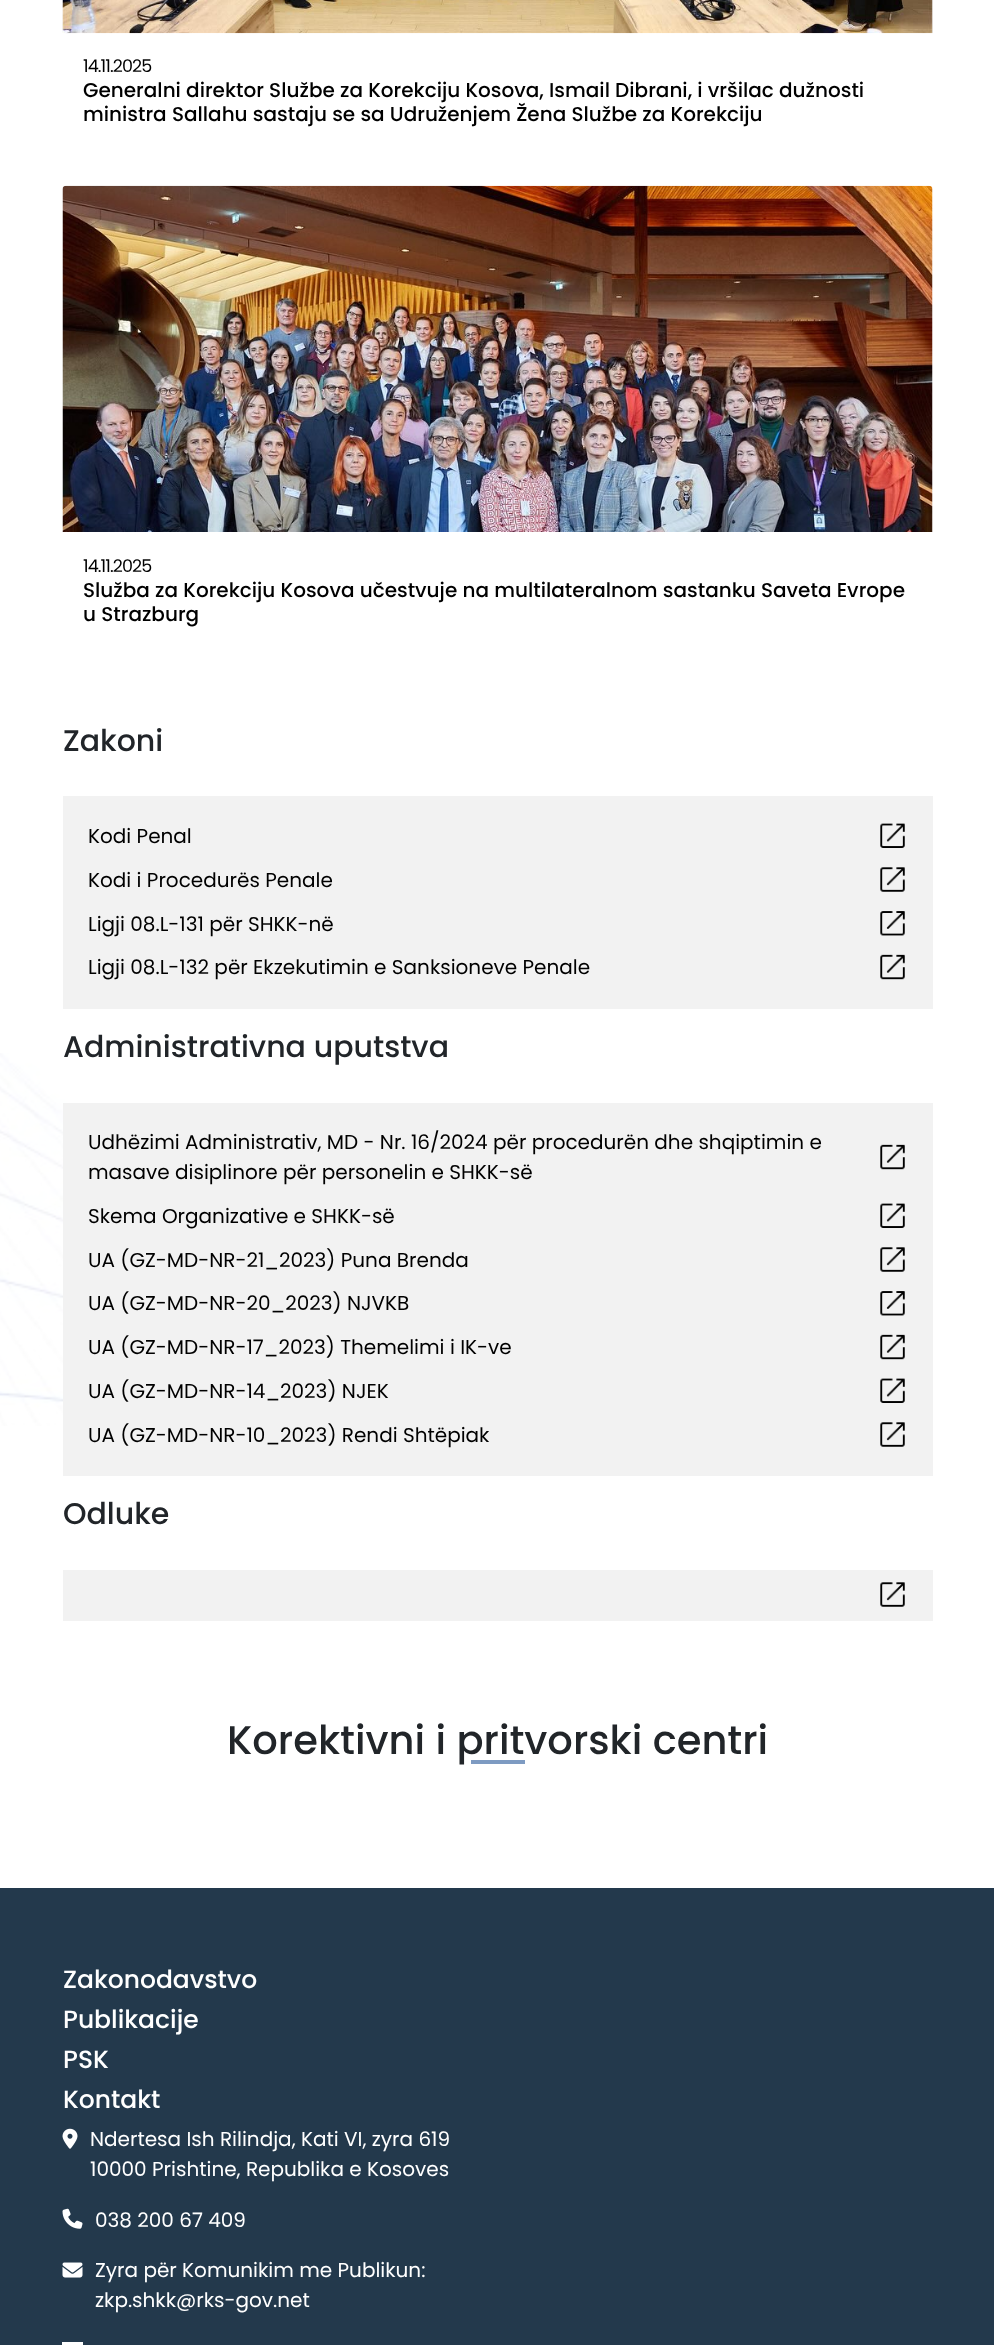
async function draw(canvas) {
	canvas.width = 994;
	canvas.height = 2345;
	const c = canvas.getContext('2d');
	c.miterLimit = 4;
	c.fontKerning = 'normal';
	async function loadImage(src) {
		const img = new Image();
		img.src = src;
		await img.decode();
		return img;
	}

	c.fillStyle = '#fff';
	c.fillRect(0, 0, 994, 2345);
	c.drawImage(await loadImage('img1.png'), 62, 0, 871, 34);
	c.letterSpacing = '-0.9px';
	c.font = '17.5px Poppins';
	c.fillStyle = '#000';
	c.fillText('14.11.2025', 83, 72);
	c.letterSpacing = '0px';
	c.font = '500 20px Poppins';
	c.fillText('Generalni direktor Službe za Korekciju Kosova, Ismail Dibrani, i vršilac dužnosti', 83, 97);
	c.fillText('ministra Sallahu sastaju se sa Udruženjem Žena Službe za Korekciju', 83, 121);
	c.drawImage(await loadImage('img2.png'), 62, 185, 871, 347);
	c.letterSpacing = '-0.9px';
	c.font = '17.5px Poppins';
	c.fillText('14.11.2025', 83, 572);
	c.letterSpacing = '0px';
	c.font = '500 20px Poppins';
	c.fillText('Služba za Korekciju Kosova učestvuje na multilateralnom sastanku Saveta Evrope', 83, 597);
	c.fillText('u Strazburg', 83, 621);
	c.font = '500 30px Poppins';
	c.fillStyle = '#212529';
	c.fillText('Zakoni', 63, 751);
	c.fillStyle = '#f2f2f2';
	c.fillRect(63, 796, 870, 213);
	c.font = '20px Poppins';
	c.fillStyle = '#000';
	c.fillText('Kodi Penal', 88, 843);
	c.drawImage(await loadImage('img3.png'), 880, 823, 25, 25);
	c.fillText('Kodi i Procedurës Penale', 88, 887);
	c.drawImage(await loadImage('img4.png'), 880, 867, 25, 25);
	c.fillText('Ligji 08.L-131 për SHKK-në', 88, 931);
	c.drawImage(await loadImage('img5.png'), 880, 911, 25, 25);
	c.fillText('Ligji 08.L-132 për Ekzekutimin e Sanksioneve Penale', 88, 974);
	c.drawImage(await loadImage('img6.png'), 880, 954, 25, 26);
	c.drawImage(await loadImage('img8.png'), 0, 1053, 552, 373);
	c.font = '500 30px Poppins';
	c.fillStyle = '#212529';
	c.fillText('Administrativna uputstva', 63, 1057);
	c.fillStyle = '#f2f2f2';
	c.fillRect(63, 1103, 870, 373);
	c.font = '20px Poppins';
	c.fillStyle = '#000';
	c.fillText('Udhëzimi Administrativ, MD - Nr. 16/2024 për procedurën dhe shqiptimin e', 88, 1149);
	c.drawImage(await loadImage('img7.png'), 880, 1144, 25, 26);
	c.fillText('masave disiplinore për personelin e SHKK-së', 88, 1179);
	c.fillText('Skema Organizative e SHKK-së', 88, 1223);
	c.drawImage(await loadImage('img3.png'), 880, 1203, 25, 25);
	c.fillText('UA (GZ-MD-NR-21_2023) Puna Brenda', 88, 1267);
	c.drawImage(await loadImage('img4.png'), 880, 1247, 25, 25);
	c.fillText('UA (GZ-MD-NR-20_2023) NJVKB', 88, 1310);
	c.drawImage(await loadImage('img5.png'), 880, 1291, 25, 25);
	c.fillText('UA (GZ-MD-NR-17_2023) Themelimi i IK-ve', 88, 1354);
	c.drawImage(await loadImage('img6.png'), 880, 1334, 25, 26);
	c.fillText('UA (GZ-MD-NR-14_2023) NJEK', 88, 1398);
	c.drawImage(await loadImage('img3.png'), 880, 1378, 25, 25);
	c.fillText('UA (GZ-MD-NR-10_2023) Rendi Shtëpiak', 88, 1442);
	c.drawImage(await loadImage('img4.png'), 880, 1422, 25, 25);
	c.font = '500 30px Poppins';
	c.fillStyle = '#212529';
	c.fillText('Odluke', 63, 1524);
	c.fillStyle = '#f2f2f2';
	c.fillRect(63, 1570, 870, 51);
	c.drawImage(await loadImage('img4.png'), 880, 1582, 25, 25);
	c.font = '500 40px Poppins';
	c.fillStyle = '#212529';
	c.fillText('Korektivni i pritvorski centri', 227, 1754);
	c.fillStyle = '#7e9bc2';
	c.fillRect(471, 1760, 54, 4);
	c.fillStyle = '#23394c';
	c.fillRect(0, 1888, 994, 457);
	c.font = '500 25px Poppins';
	c.fillStyle = '#fff';
	for (const [text, x, y] of [
		['Zakonodavstvo', 63, 1988],
		['Publikacije', 63, 2028],
		['PSK', 63, 2068],
		['Kontakt', 63, 2108],
	]) {
		c.fillText(text, x, y);
	}
	c.drawImage(await loadImage('img9.png'), 62, 2128, 16, 21);
	c.font = '20px Poppins';
	c.fillText('Ndertesa Ish Rilindja, Kati VI, zyra 619', 90, 2146);
	c.fillText('10000 Prishtine, Republika e Kosoves', 90, 2176);
	c.drawImage(await loadImage('img10.png'), 62, 2208, 21, 21);
	c.fillText('038 200 67 409', 95, 2227);
	c.drawImage(await loadImage('img11.png'), 62, 2262, 21, 16);
	c.fillText('Zyra për Komunikim me Publikun:', 95, 2277);
	c.fillText('zkp.shkk@rks-gov.net', 95, 2307);
	c.fillRect(62, 2342, 21, 3);
}

draw(document.querySelector('canvas'));
